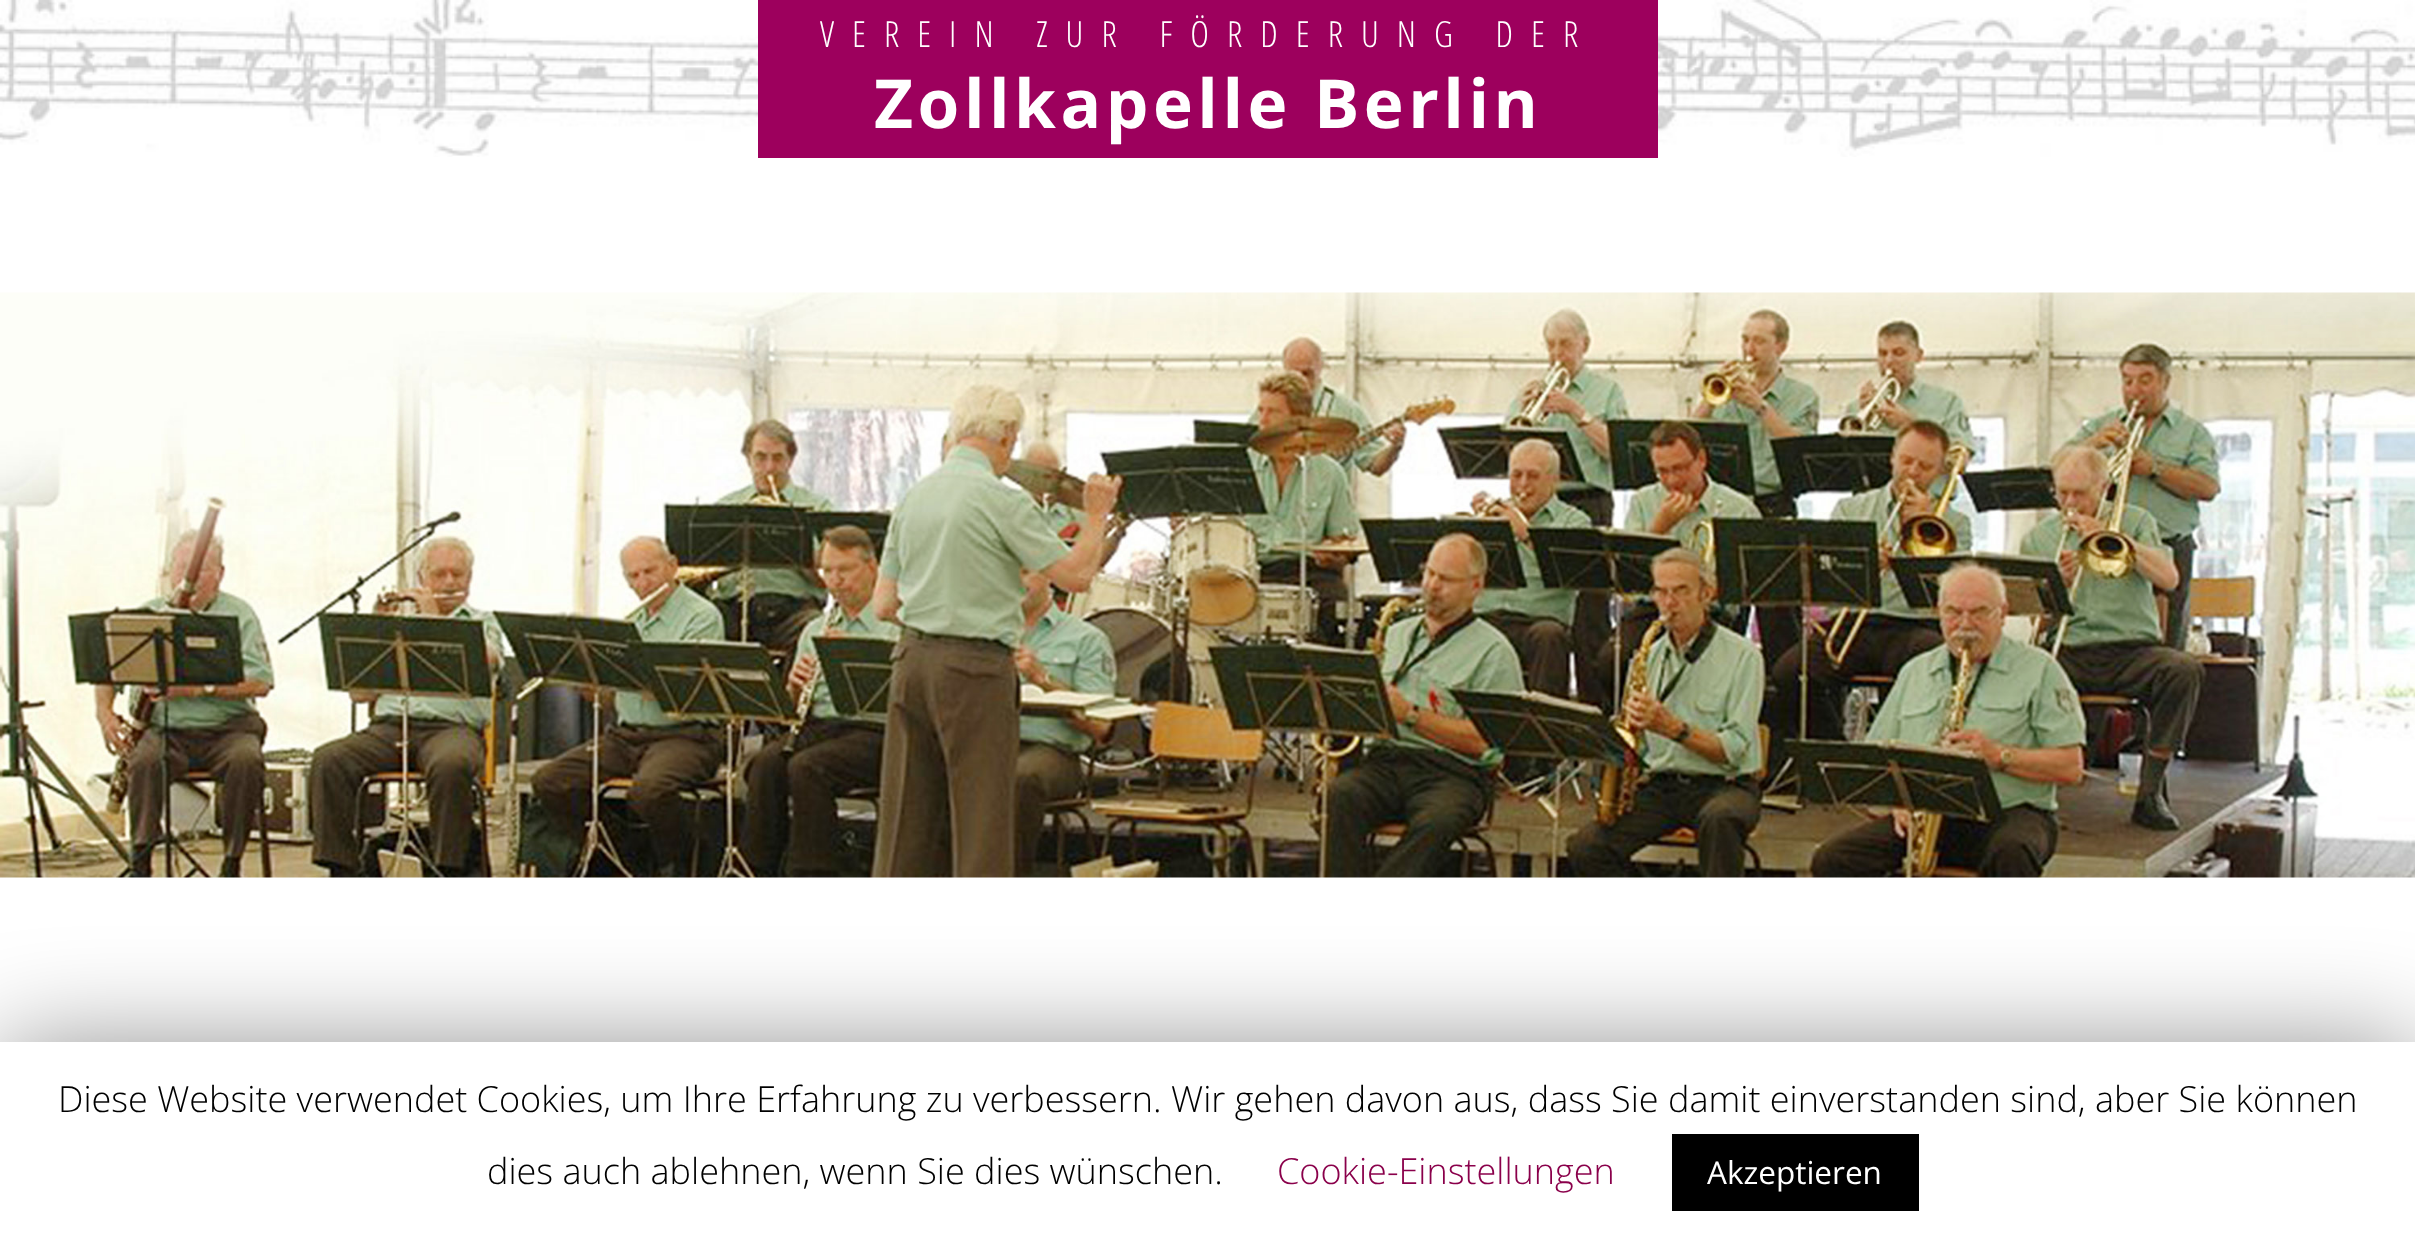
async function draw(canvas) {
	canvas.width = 2415;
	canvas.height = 1250;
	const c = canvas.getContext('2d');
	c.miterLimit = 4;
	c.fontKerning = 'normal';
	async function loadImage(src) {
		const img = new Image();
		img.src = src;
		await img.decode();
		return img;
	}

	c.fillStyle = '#fff';
	c.fillRect(0, 0, 2415, 1250);
	c.drawImage(await loadImage('img1.png'), 0, 0, 2415, 157);
	c.fillStyle = '#9d005d';
	c.fillRect(758, 0, 900, 158);
	c.letterSpacing = '18px';
	c.font = '300 36px Open Sans Condensed';
	c.fillStyle = '#fff';
	c.fillText('VEREIN ZUR FÖRDERUNG DER', 820, 47);
	c.letterSpacing = '4.5px';
	c.font = 'bold 67.5px Open Sans';
	c.fillText('Zollkapelle Berlin', 874, 128);
	c.drawImage(await loadImage('img2.png'), 0, 292, 2415, 586);
	c.fillStyle = '#00000080';
	c.filter = 'blur(56px)';
	c.beginPath();
	c.rect(0, 1053, 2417, 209);
	c.fill();
	c.filter = 'none';
	c.fillStyle = '#fff';
	c.fillRect(0, 1042, 2415, 208);
	c.letterSpacing = '0px';
	c.font = '300 36px Open Sans';
	c.fillStyle = '#000';
	c.fillText('Diese Website verwendet Cookies, um Ihre Erfahrung zu verbessern. Wir gehen davon aus, dass Sie damit einverstanden sind, aber Sie können', 58, 1112);
	c.fillText('dies auch ablehnen, wenn Sie dies wünschen.', 487, 1184);
	c.fillStyle = '#8a004b';
	c.fillText('Cookie-Einstellungen', 1277, 1184);
	c.fillStyle = '#000';
	c.fillRect(1672, 1134, 247, 77);
	c.font = '31.5px Open Sans';
	c.fillStyle = '#fff';
	c.fillText('Akzeptieren', 1707, 1184);
}

draw(document.querySelector('canvas'));
